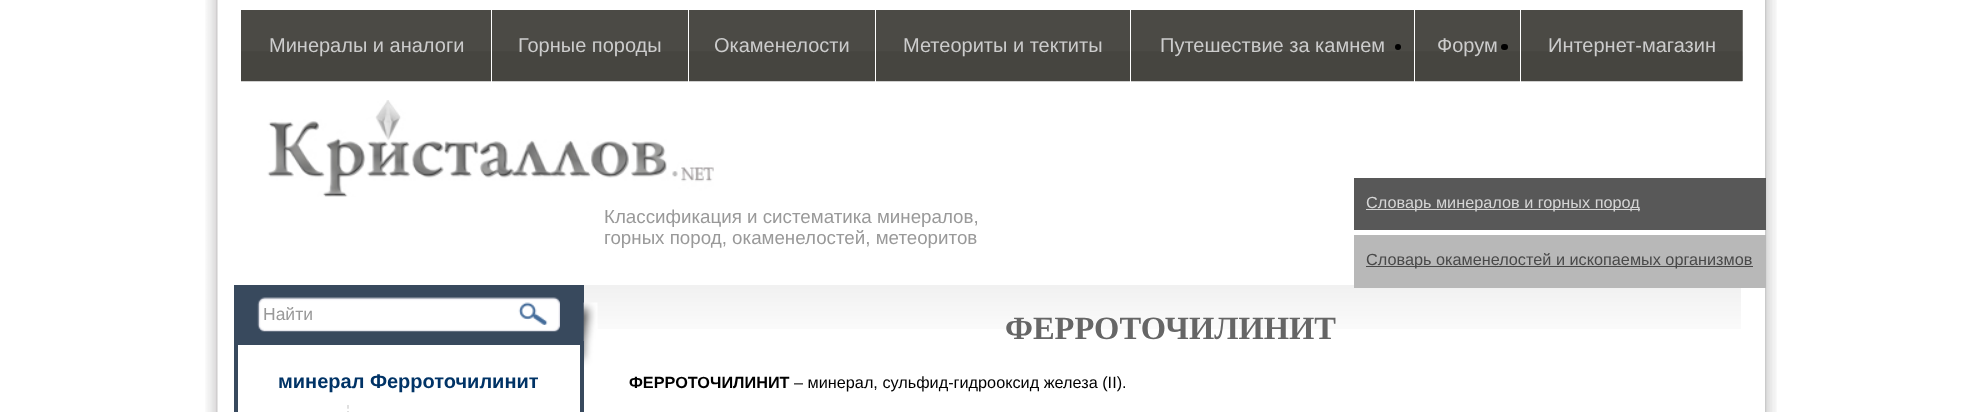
async function draw(canvas) {
	canvas.width = 1982;
	canvas.height = 412;
	const c = canvas.getContext('2d');
	c.miterLimit = 4;
	c.fontKerning = 'normal';
	async function loadImage(src) {
		const img = new Image();
		img.src = src;
		await img.decode();
		return img;
	}

	c.fillStyle = '#fff';
	c.fillRect(0, 0, 1982, 412);
	c.drawImage(await loadImage('img1.png'), 205, 0, 13, 412);
	c.drawImage(await loadImage('img2.png'), 1765, 0, 12, 412);
	c.drawImage(await loadImage('img3.png'), 1742, 56, 1, 14);
	c.drawImage(await loadImage('img4.png'), 241, 10, 1502, 72);
	c.font = '20px Liberation Sans';
	c.fillStyle = '#ccc';
	c.fillText('Минералы и аналоги', 269, 52);
	c.fillStyle = '#fff';
	c.fillRect(491, 10, 1, 73);
	c.fillStyle = '#ccc';
	c.fillText('Горные породы', 518, 52);
	c.fillStyle = '#fff';
	c.fillRect(688, 10, 1, 73);
	c.fillStyle = '#ccc';
	c.fillText('Окаменелости', 714, 52);
	c.fillStyle = '#fff';
	c.fillRect(875, 10, 1, 73);
	c.fillStyle = '#ccc';
	c.fillText('Метеориты и тектиты', 903, 52);
	c.fillStyle = '#fff';
	c.fillRect(1130, 10, 1, 73);
	c.fillStyle = '#ccc';
	c.fillText('Путешествие за камнем', 1160, 52);
	c.fillStyle = '#fff';
	c.fillRect(1414, 10, 1, 73);
	c.fillStyle = '#000';
	c.beginPath();
	c.arc(1398, 47, 3, 0, 2 * Math.PI);
	c.fill();
	c.fillStyle = '#ccc';
	c.fillText('Форум', 1437, 52);
	c.fillStyle = '#fff';
	c.fillRect(1520, 10, 1, 73);
	c.drawImage(await loadImage('img5.png'), 1742, 10, 1, 71);
	c.fillStyle = '#000';
	c.beginPath();
	c.roundRect(1501, 44, 7, 6, 3);
	c.fill();
	c.fillStyle = '#ccc';
	c.fillText('Интернет-магазин', 1548, 52);
	c.drawImage(await loadImage('img6.png'), 267, 100, 447, 97);
	c.fillStyle = '#585858';
	c.fillRect(1354, 178, 412, 52);
	c.fillStyle = '#d5d5d5';
	c.fillRect(1366, 209, 274, 1);
	c.font = '16.25px Liberation Sans';
	c.fillText('Словарь минералов и горных пород', 1366, 208);
	c.font = '18.75px Liberation Sans';
	c.fillStyle = '#999';
	c.fillText('Классификация и систематика минералов,', 604, 223);
	c.fillText('горных пород, окаменелостей, метеоритов', 604, 244);
	c.drawImage(await loadImage('img10.png'), 584, 285, 1157, 44);
	c.fillStyle = '#b8b8b8';
	c.fillRect(1354, 235, 412, 53);
	c.fillStyle = '#494949';
	c.fillRect(1366, 266, 387, 1);
	c.font = '16.25px Liberation Sans';
	c.fillText('Словарь окаменелостей и ископаемых организмов', 1366, 265);
	c.fillStyle = '#38495d';
	c.fillRect(234, 285, 350, 56);
	c.drawImage(await loadImage('img7.png'), 583, 302, 15, 71);
	c.drawImage(await loadImage('img8.png'), 257, 297, 303, 35);
	c.font = '17.5px Liberation Sans';
	c.fillStyle = '#999';
	c.fillText('Найти', 263, 320);
	c.drawImage(await loadImage('img9.png'), 518, 302, 30, 23);
	c.strokeStyle = '#38495d';
	c.lineWidth = 4;
	c.strokeRect(236, 343, 346, 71);
	c.font = 'bold 20px Liberation Sans';
	c.fillStyle = '#036';
	c.fillText('минерал Ферроточилинит', 278, 388);
	c.beginPath();
	c.moveTo(348, 405);
	c.lineTo(348, 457.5);
	c.strokeStyle = '#ccc';
	c.lineWidth = 1.2;
	c.setLineDash([3.75, 2.35]);
	c.stroke();
	c.font = 'bold 32.5px Liberation Serif';
	c.fillStyle = '#666';
	c.fillText('ФЕРРОТОЧИЛИНИТ', 1005, 339);
	c.font = 'bold 16.25px Liberation Sans';
	c.fillStyle = '#000';
	c.fillText('ФЕРРОТОЧИЛИНИТ', 629, 388);
	c.font = '16.25px Liberation Sans';
	c.fillText('– минерал, сульфид-гидрооксид железа (II).', 794, 388);
}

draw(document.querySelector('canvas'));
